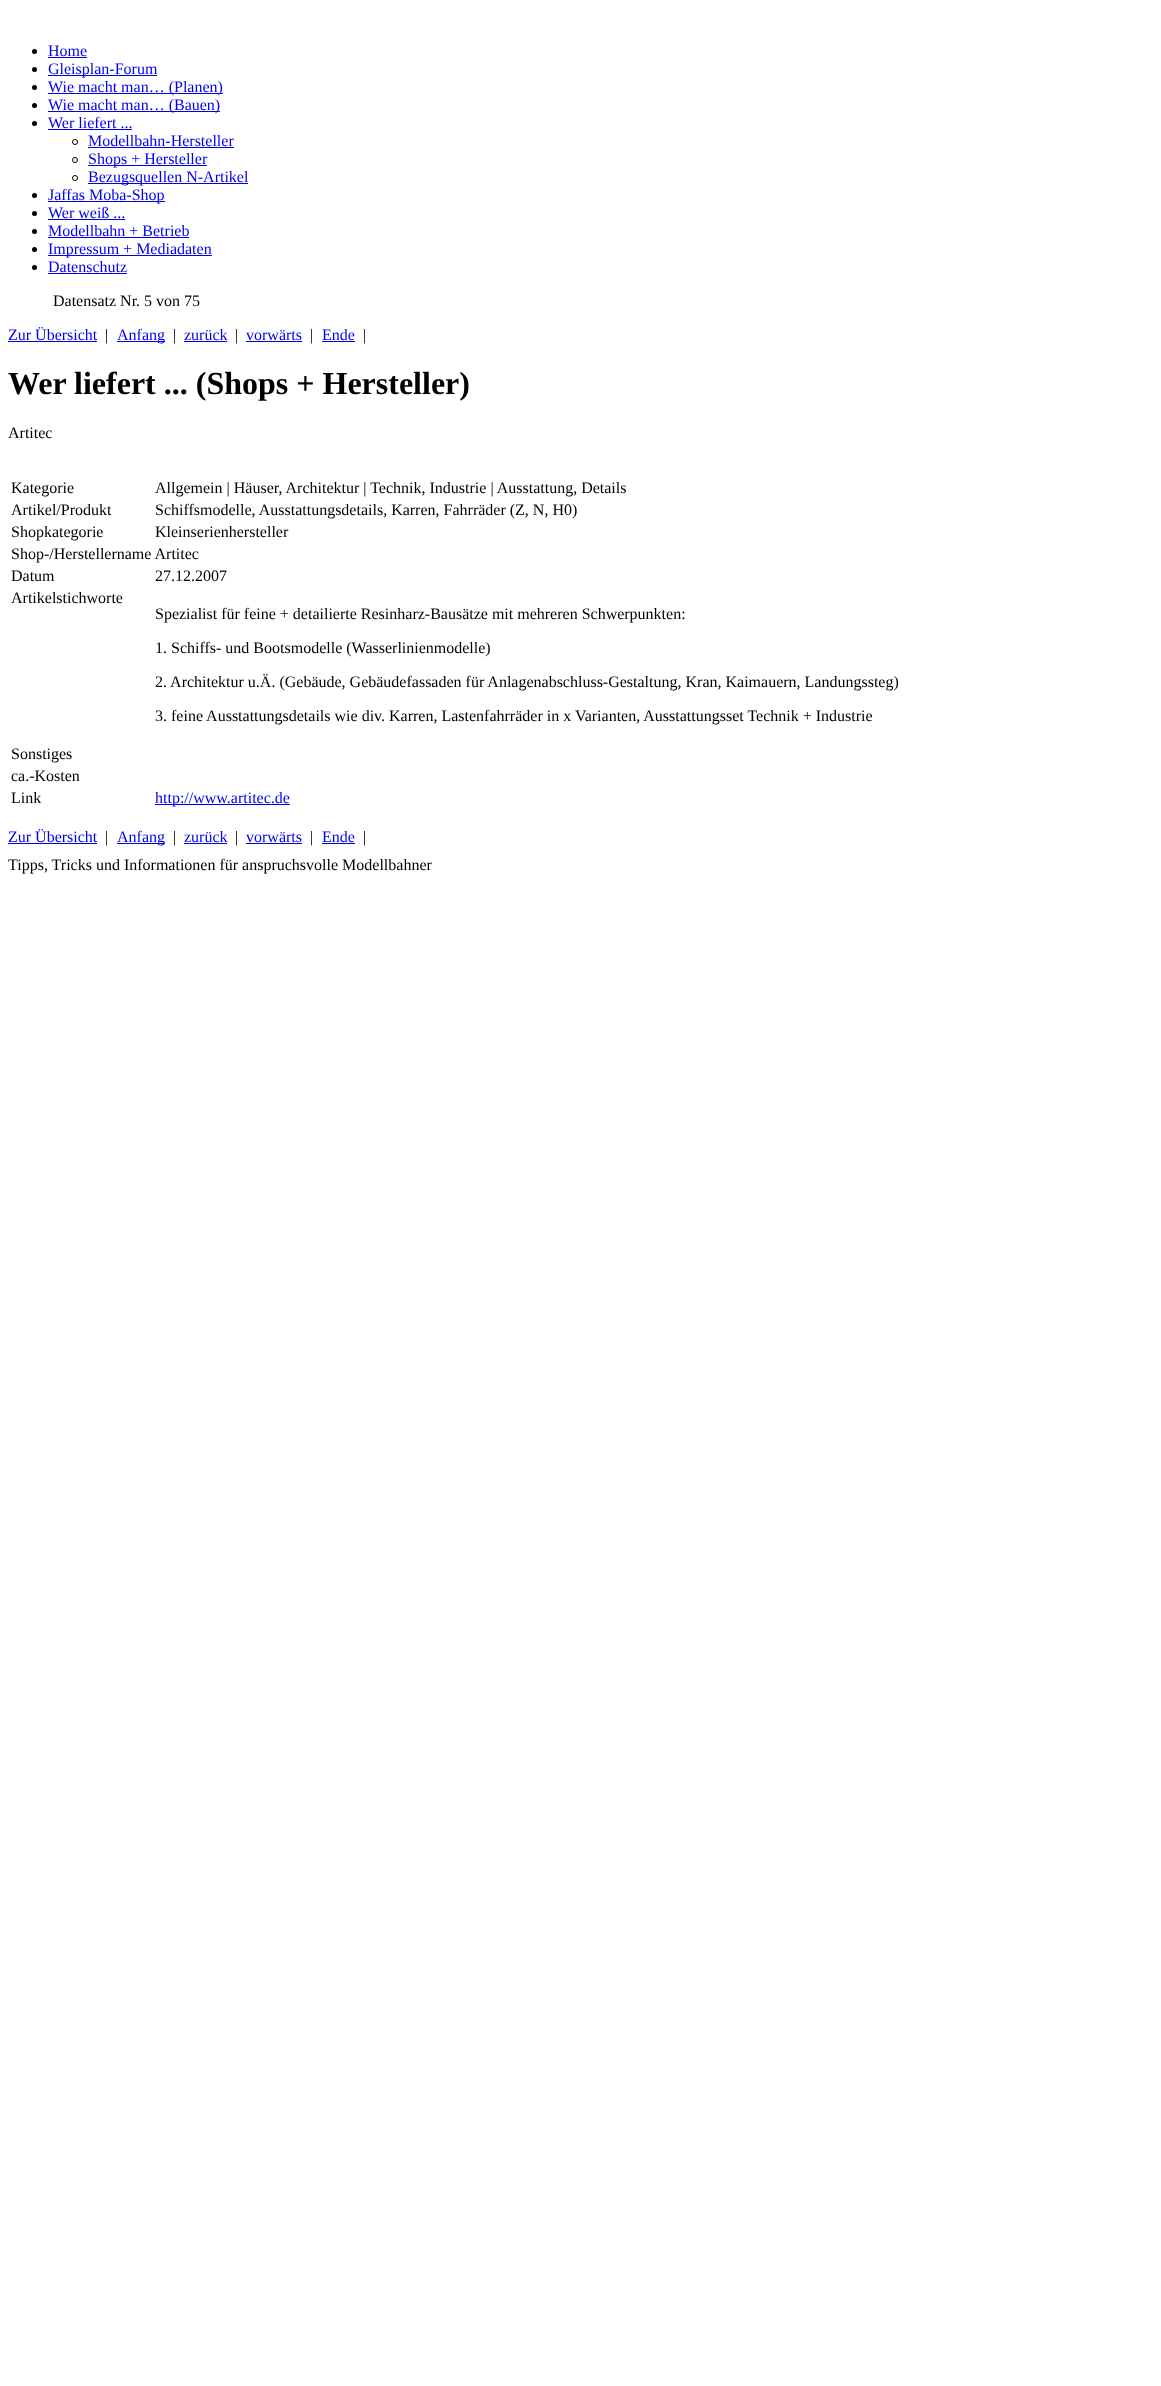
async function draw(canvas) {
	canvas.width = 1161;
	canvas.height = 2386;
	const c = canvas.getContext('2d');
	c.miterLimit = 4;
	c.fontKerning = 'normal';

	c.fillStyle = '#fff';
	c.fillRect(0, 0, 1161, 2386);
	c.fillStyle = '#000';
	c.beginPath();
	c.arc(34.5, 51.5, 2.5, 0, 2 * Math.PI);
	c.fill();
	c.font = '16px Liberation Serif';
	c.fillStyle = '#00e';
	c.fillText('Home', 48, 56);
	c.fillRect(48, 57, 39, 1);
	c.fillStyle = '#000';
	c.beginPath();
	c.arc(34.5, 69.5, 2.5, 0, 2 * Math.PI);
	c.fill();
	c.fillStyle = '#00e';
	c.fillRect(48, 75, 109, 1);
	c.fillText('Gleisplan-Forum', 48, 74);
	c.fillStyle = '#000';
	c.beginPath();
	c.arc(34.5, 87.5, 2.5, 0, 2 * Math.PI);
	c.fill();
	c.fillStyle = '#00e';
	c.fillRect(48, 93, 175, 1);
	c.fillText('Wie macht man… (Planen)', 48, 92);
	c.fillStyle = '#000';
	c.beginPath();
	c.arc(34.5, 105.5, 2.5, 0, 2 * Math.PI);
	c.fill();
	c.fillStyle = '#00e';
	c.fillRect(48, 111, 172, 1);
	c.fillText('Wie macht man… (Bauen)', 48, 110);
	c.fillStyle = '#000';
	c.beginPath();
	c.arc(34.5, 123.5, 2.5, 0, 2 * Math.PI);
	c.fill();
	c.fillStyle = '#00e';
	c.fillText('Wer liefert ...', 48, 128);
	c.fillRect(48, 129, 84, 1);
	c.beginPath();
	c.arc(75, 142, 2.5, 0, 2 * Math.PI);
	c.strokeStyle = '#000';
	c.stroke();
	c.fillText('Modellbahn-Hersteller', 88, 146);
	c.fillRect(88, 147, 146, 1);
	c.beginPath();
	c.arc(75, 160, 2.5, 0, 2 * Math.PI);
	c.stroke();
	c.fillRect(88, 165, 119, 1);
	c.fillText('Shops + Hersteller', 88, 164);
	c.beginPath();
	c.arc(75, 178, 2.5, 0, 2 * Math.PI);
	c.stroke();
	c.fillRect(88, 183, 160, 1);
	c.fillText('Bezugsquellen N-Artikel', 88, 182);
	c.fillStyle = '#000';
	c.beginPath();
	c.arc(34.5, 195.5, 2.5, 0, 2 * Math.PI);
	c.fill();
	c.fillStyle = '#00e';
	c.fillRect(48, 201, 117, 1);
	c.fillText('Jaffas Moba-Shop', 48, 200);
	c.fillStyle = '#000';
	c.beginPath();
	c.arc(34.5, 213.5, 2.5, 0, 2 * Math.PI);
	c.fill();
	c.fillStyle = '#00e';
	c.fillText('Wer weiß ...', 48, 218);
	c.fillRect(48, 219, 77, 1);
	c.fillStyle = '#000';
	c.beginPath();
	c.arc(34.5, 231.5, 2.5, 0, 2 * Math.PI);
	c.fill();
	c.fillStyle = '#00e';
	c.fillText('Modellbahn + Betrieb', 48, 236);
	c.fillRect(48, 237, 141, 1);
	c.fillStyle = '#000';
	c.beginPath();
	c.arc(34.5, 249.5, 2.5, 0, 2 * Math.PI);
	c.fill();
	c.fillStyle = '#00e';
	c.fillRect(48, 255, 164, 1);
	c.fillText('Impressum + Mediadaten', 48, 254);
	c.fillStyle = '#000';
	c.beginPath();
	c.arc(34.5, 267.5, 2.5, 0, 2 * Math.PI);
	c.fill();
	c.fillStyle = '#00e';
	c.fillText('Datenschutz', 48, 272);
	c.fillRect(48, 273, 79, 1);
	c.fillStyle = '#000';
	c.fillText('Datensatz Nr. 5 von 75', 53, 306);
	c.fillStyle = '#00e';
	c.fillText('Zur Übersicht', 8, 340);
	c.fillRect(8, 341, 89, 1);
	c.fillStyle = '#000';
	c.fillText('|', 105, 340);
	c.fillStyle = '#00e';
	c.fillRect(117, 341, 48, 1);
	c.fillText('Anfang', 117, 340);
	c.fillStyle = '#000';
	c.fillText('|', 173, 340);
	c.fillStyle = '#00e';
	c.fillText('zurück', 184, 340);
	c.fillRect(184, 341, 43, 1);
	c.fillStyle = '#000';
	c.fillText('|', 235, 340);
	c.fillStyle = '#00e';
	c.fillText('vorwärts', 246, 340);
	c.fillRect(246, 341, 56, 1);
	c.fillStyle = '#000';
	c.fillText('|', 310, 340);
	c.fillStyle = '#00e';
	c.fillText('Ende', 322, 340);
	c.fillRect(322, 341, 33, 1);
	c.fillStyle = '#000';
	c.fillText('|', 363, 340);
	c.font = 'bold 32px Liberation Serif';
	c.fillText('Wer liefert ... (Shops + Hersteller)', 8, 394);
	c.font = '16px Liberation Serif';
	for (const [text, x, y] of [
		['Artitec', 8, 438],
		['Kategorie', 11, 493],
		['Allgemein | Häuser, Architektur | Technik, Industrie | Ausstattung, Details', 155, 493],
		['Artikel/Produkt', 11, 515],
		['Schiffsmodelle, Ausstattungsdetails, Karren, Fahrräder (Z, N, H0)', 155, 515],
		['Shopkategorie', 11, 537],
		['Kleinserienhersteller', 155, 537],
		['Shop-/Herstellername Artitec', 11, 559],
		['Datum', 11, 581],
		['27.12.2007', 155, 581],
		['Artikelstichworte', 11, 603],
		['Spezialist für feine + detailierte Resinharz-Bausätze mit mehreren Schwerpunkten:', 155, 619],
		['1. Schiffs- und Bootsmodelle (Wasserlinienmodelle)', 155, 653],
		['2. Architektur u.Ä. (Gebäude, Gebäudefassaden für Anlagenabschluss-Gestaltung, Kran, Kaimauern, Landungssteg)', 155, 687],
		['3. feine Ausstattungsdetails wie div. Karren, Lastenfahrräder in x Varianten, Ausstattungsset Technik + Industrie', 155, 721],
		['Sonstiges', 11, 759],
		['ca.-Kosten', 11, 781],
		['Link', 11, 803],
	]) {
		c.fillText(text, x, y);
	}
	c.fillStyle = '#00e';
	c.fillRect(155, 804, 135, 1);
	c.fillText('http://www.artitec.de', 155, 803);
	c.fillText('Zur Übersicht', 8, 842);
	c.fillRect(8, 843, 89, 1);
	c.fillStyle = '#000';
	c.fillText('|', 105, 842);
	c.fillStyle = '#00e';
	c.fillRect(117, 843, 48, 1);
	c.fillText('Anfang', 117, 842);
	c.fillStyle = '#000';
	c.fillText('|', 173, 842);
	c.fillStyle = '#00e';
	c.fillText('zurück', 184, 842);
	c.fillRect(184, 843, 43, 1);
	c.fillStyle = '#000';
	c.fillText('|', 235, 842);
	c.fillStyle = '#00e';
	c.fillText('vorwärts', 246, 842);
	c.fillRect(246, 843, 56, 1);
	c.fillStyle = '#000';
	c.fillText('|', 310, 842);
	c.fillStyle = '#00e';
	c.fillText('Ende', 322, 842);
	c.fillRect(322, 843, 33, 1);
	c.fillStyle = '#000';
	c.fillText('|', 363, 842);
	c.fillText('Tipps, Tricks und Informationen für anspruchsvolle Modellbahner', 8, 870);
}

draw(document.querySelector('canvas'));
